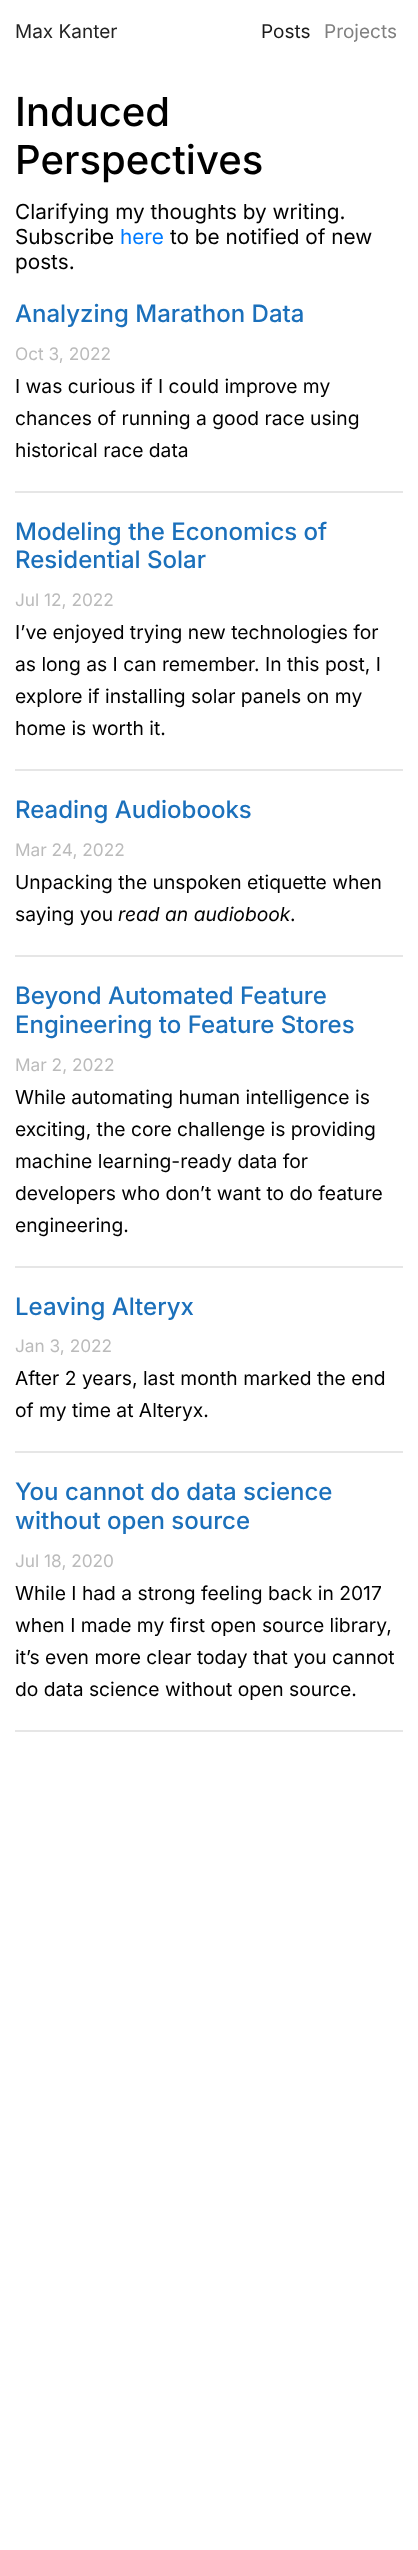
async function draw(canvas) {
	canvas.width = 418;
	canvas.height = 2550;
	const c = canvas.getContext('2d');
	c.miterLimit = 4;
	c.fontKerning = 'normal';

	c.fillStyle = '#fff';
	c.fillRect(0, 0, 418, 2550);
	c.font = '19px Inter';
	c.fillStyle = '#222';
	c.fillText('Max Kanter', 15, 38);
	c.fillStyle = '#1a1a1a';
	c.fillText('Posts', 261, 38);
	c.fillStyle = '#808080';
	c.fillText('Projects', 324, 38);
	c.font = '500 40px Inter';
	c.fillStyle = '#000';
	c.fillText('Induced', 15, 126);
	c.fillText('Perspectives', 15, 174);
	c.font = '20.75px Inter';
	c.fillText('Clarifying my thoughts by writing.', 15, 219);
	c.fillText('Subscribe', 15, 244);
	c.fillStyle = '#007bff';
	c.fillText('here', 120, 244);
	c.fillStyle = '#000';
	c.fillText('to be notified of new', 170, 244);
	c.fillText('posts.', 15, 269);
	c.font = '500 24px Inter';
	c.fillStyle = '#1b70bb';
	c.fillText('Analyzing Marathon Data', 15, 322);
	c.font = '17.25px Inter';
	c.fillStyle = '#bbb';
	c.fillText('Oct 3, 2022', 15, 360);
	c.font = '19.25px Inter';
	c.fillStyle = '#000';
	for (const [text, x, y] of [
		['I was curious if I could improve my', 15, 393],
		['chances of running a good race using', 15, 425],
		['historical race data', 15, 457],
	]) {
		c.fillText(text, x, y);
	}
	c.fillStyle = '#e6e6e6';
	c.fillRect(15, 491, 388, 2);
	c.font = '500 24px Inter';
	c.fillStyle = '#1b70bb';
	c.fillText('Modeling the Economics of', 15, 540);
	c.fillText('Residential Solar', 15, 568);
	c.font = '17.25px Inter';
	c.fillStyle = '#bbb';
	c.fillText('Jul 12, 2022', 15, 606);
	c.font = '19.25px Inter';
	c.fillStyle = '#000';
	for (const [text, x, y] of [
		['I’ve enjoyed trying new technologies for', 15, 639],
		['as long as I can remember. In this post, I', 15, 671],
		['explore if installing solar panels on my', 15, 703],
		['home is worth it.', 15, 735],
	]) {
		c.fillText(text, x, y);
	}
	c.fillStyle = '#e6e6e6';
	c.fillRect(15, 769, 388, 2);
	c.font = '500 24px Inter';
	c.fillStyle = '#1b70bb';
	c.fillText('Reading Audiobooks', 15, 818);
	c.font = '17.25px Inter';
	c.fillStyle = '#bbb';
	c.fillText('Mar 24, 2022', 15, 856);
	c.font = '19.25px Inter';
	c.fillStyle = '#000';
	c.fillText('Unpacking the unspoken etiquette when', 15, 889);
	c.fillText('saying you', 15, 921);
	c.font = 'italic 19.25px Inter';
	c.fillText('read an audiobook', 118, 921);
	c.font = '19.25px Inter';
	c.fillText('.', 290, 921);
	c.fillStyle = '#e6e6e6';
	c.fillRect(15, 955, 388, 2);
	c.font = '500 24px Inter';
	c.fillStyle = '#1b70bb';
	c.fillText('Beyond Automated Feature', 15, 1004);
	c.fillText('Engineering to Feature Stores', 15, 1033);
	c.font = '17.25px Inter';
	c.fillStyle = '#bbb';
	c.fillText('Mar 2, 2022', 15, 1071);
	c.font = '19.25px Inter';
	c.fillStyle = '#000';
	for (const [text, x, y] of [
		['While automating human intelligence is', 15, 1104],
		['exciting, the core challenge is providing', 15, 1136],
		['machine learning-ready data for', 15, 1168],
		['developers who don’t want to do feature', 15, 1200],
		['engineering.', 15, 1232],
	]) {
		c.fillText(text, x, y);
	}
	c.fillStyle = '#e6e6e6';
	c.fillRect(15, 1266, 388, 2);
	c.font = '500 24px Inter';
	c.fillStyle = '#1b70bb';
	c.fillText('Leaving Alteryx', 15, 1315);
	c.font = '17.25px Inter';
	c.fillStyle = '#bbb';
	c.fillText('Jan 3, 2022', 15, 1352);
	c.font = '19.25px Inter';
	c.fillStyle = '#000';
	c.fillText('After 2 years, last month marked the end', 15, 1385);
	c.fillText('of my time at Alteryx.', 15, 1417);
	c.fillStyle = '#e6e6e6';
	c.fillRect(15, 1451, 388, 2);
	c.font = '500 24px Inter';
	c.fillStyle = '#1b70bb';
	c.fillText('You cannot do data science', 15, 1500);
	c.fillText('without open source', 15, 1529);
	c.font = '17.25px Inter';
	c.fillStyle = '#bbb';
	c.fillText('Jul 18, 2020', 15, 1567);
	c.font = '19.25px Inter';
	c.fillStyle = '#000';
	for (const [text, x, y] of [
		['While I had a strong feeling back in 2017', 15, 1600],
		['when I made my first open source library,', 15, 1632],
		['it’s even more clear today that you cannot', 15, 1664],
		['do data science without open source.', 15, 1696],
	]) {
		c.fillText(text, x, y);
	}
	c.fillStyle = '#e6e6e6';
	c.fillRect(15, 1730, 388, 2);
}

draw(document.querySelector('canvas'));
